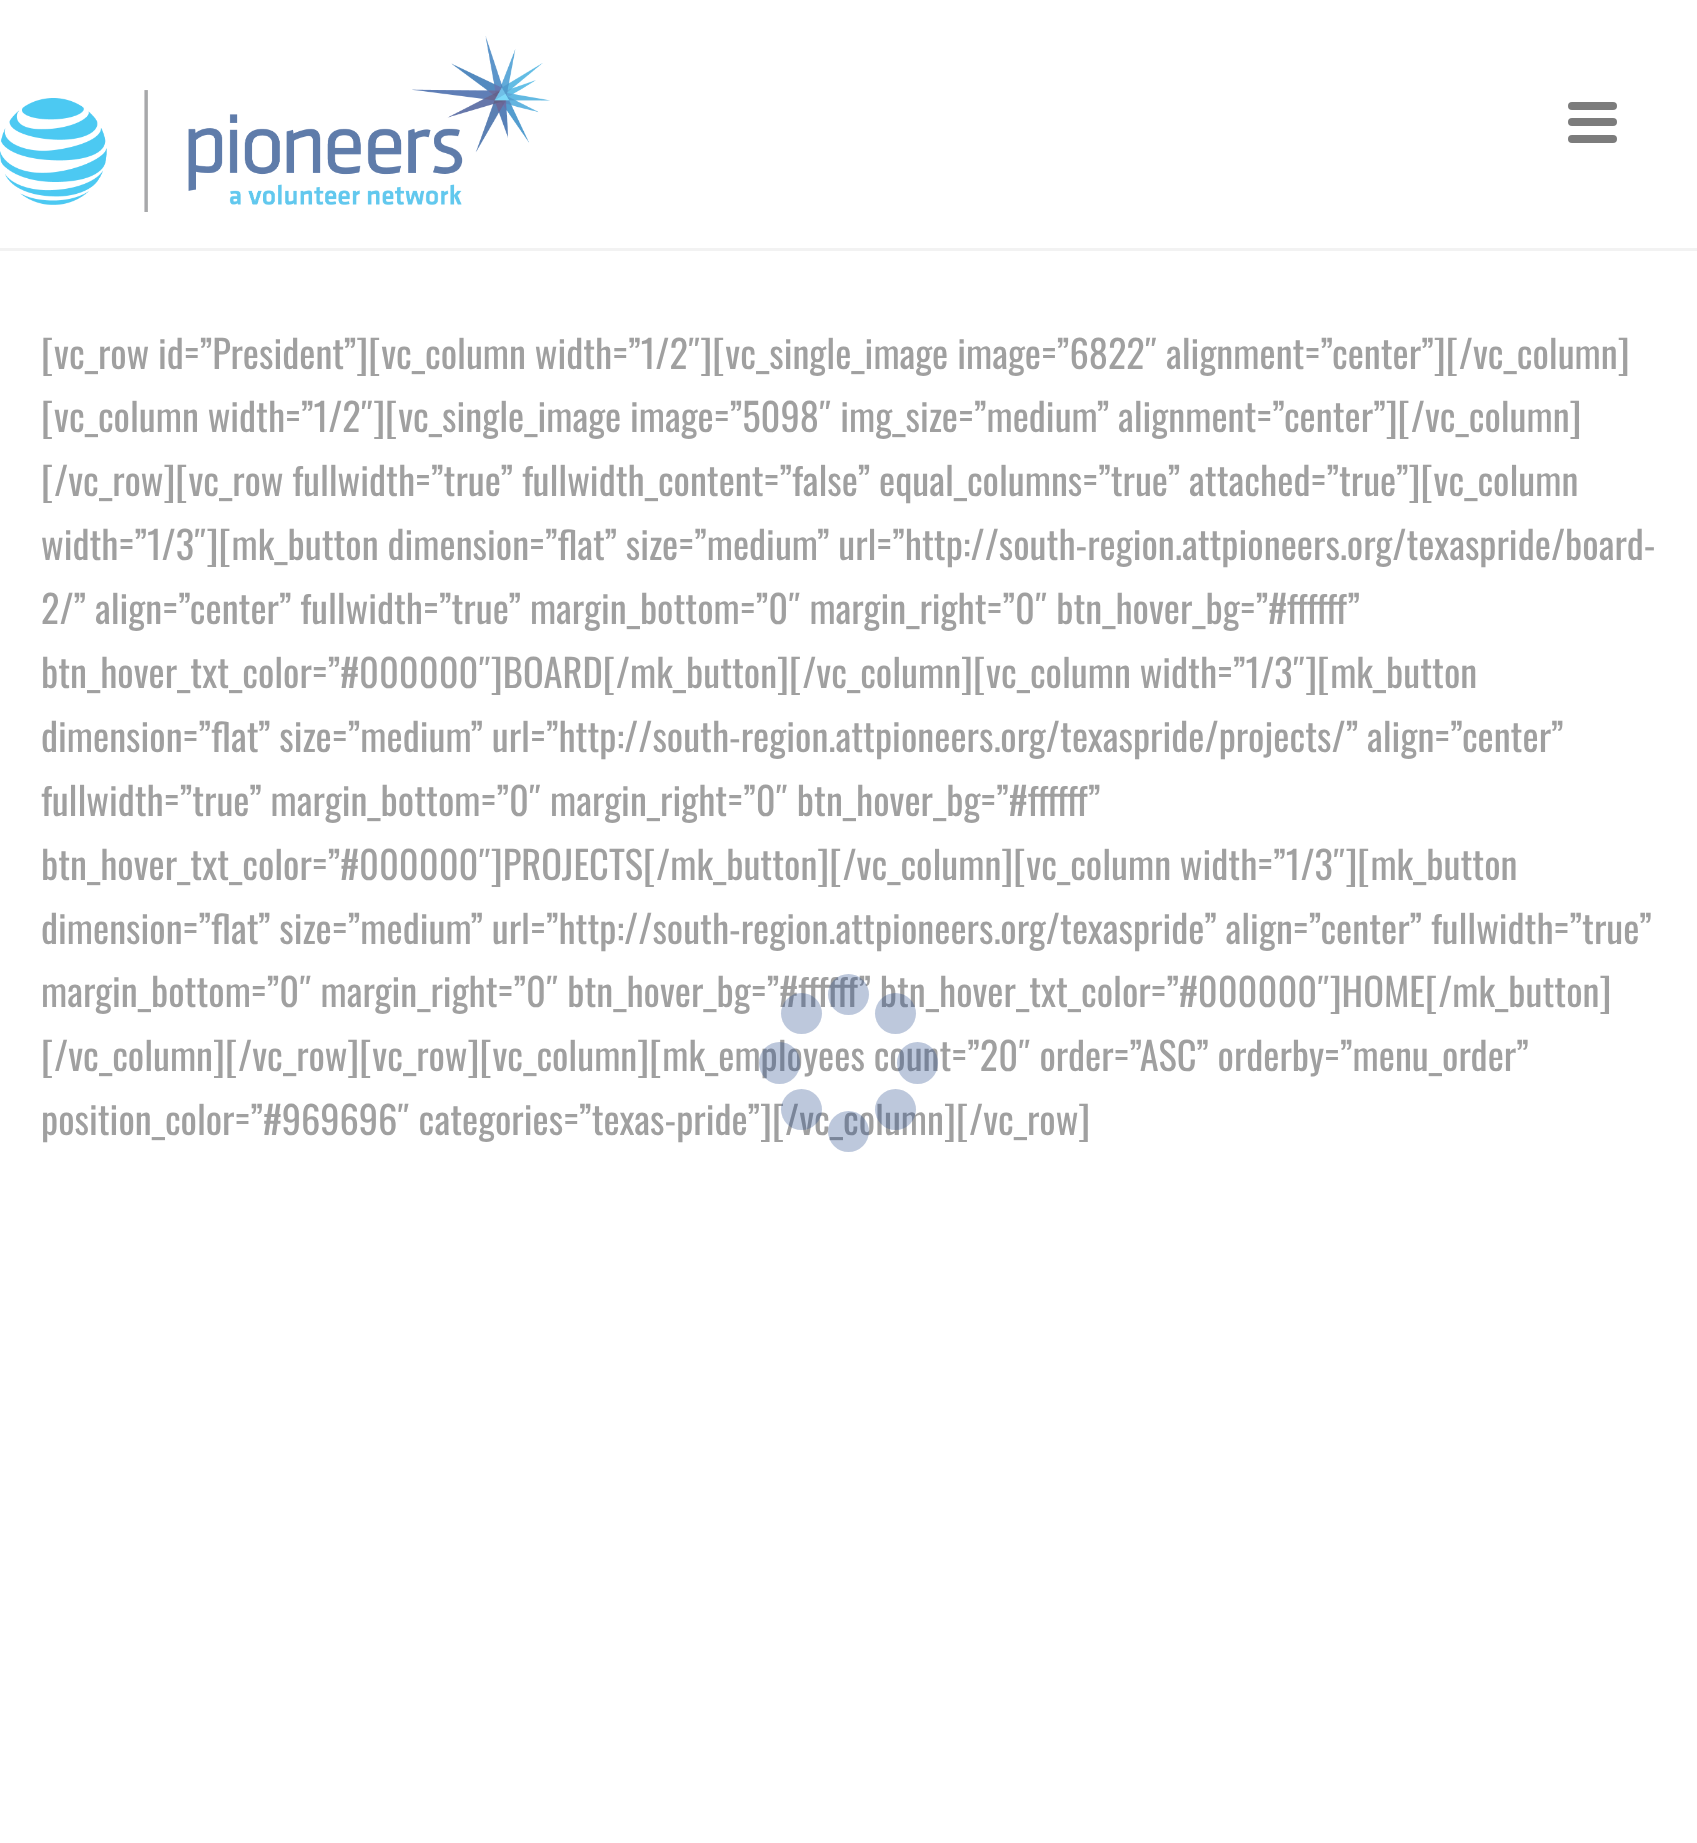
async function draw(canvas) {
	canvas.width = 1697;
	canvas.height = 1843;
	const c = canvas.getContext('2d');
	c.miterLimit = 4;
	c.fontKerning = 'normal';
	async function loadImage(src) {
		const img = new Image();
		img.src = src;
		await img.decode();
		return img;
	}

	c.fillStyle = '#fff';
	c.fillRect(0, 0, 1697, 1843);
	c.fillStyle = '#f2f2f2';
	c.fillRect(0, 248, 1697, 3);
	c.drawImage(await loadImage('img1.png'), 0, 36, 550, 176);
	c.fillStyle = '#7c7c7c';
	c.beginPath();
	c.roundRect(1568, 102, 49, 8, 4);
	c.fill();
	c.beginPath();
	c.roundRect(1568, 118, 49, 8, 4);
	c.fill();
	c.beginPath();
	c.roundRect(1568, 135, 49, 8, 4);
	c.fill();
	c.font = '38.5px Oswald';
	c.fillStyle = '#a0a0a0';
	for (const [text, x, y] of [
		['[vc_row id=”President”][vc_column width=”1/2″][vc_single_image image=”6822″ alignment=”center”][/vc_column]', 41, 369],
		['[vc_column width=”1/2″][vc_single_image image=”5098″ img_size=”medium” alignment=”center”][/vc_column]', 41, 432],
		['[/vc_row][vc_row fullwidth=”true” fullwidth_content=”false” equal_columns=”true” attached=”true”][vc_column', 41, 496],
		['width=”1/3″][mk_button dimension=”flat” size=”medium” url=”http://south-region.attpioneers.org/texaspride/board-', 41, 560],
		['2/” align=”center” fullwidth=”true” margin_bottom=”0″ margin_right=”0″ btn_hover_bg=”#ffffff”', 41, 624],
		['btn_hover_txt_color=”#000000″]BOARD[/mk_button][/vc_column][vc_column width=”1/3″][mk_button', 41, 688],
		['dimension=”flat” size=”medium” url=”http://south-region.attpioneers.org/texaspride/projects/” align=”center”', 41, 752],
		['fullwidth=”true” margin_bottom=”0″ margin_right=”0″ btn_hover_bg=”#ffffff”', 41, 816],
		['btn_hover_txt_color=”#000000″]PROJECTS[/mk_button][/vc_column][vc_column width=”1/3″][mk_button', 41, 880],
		['dimension=”flat” size=”medium” url=”http://south-region.attpioneers.org/texaspride” align=”center” fullwidth=”true”', 41, 944],
		['margin_bottom=”0″ margin_right=”0″ btn_hover_bg=”#ffffff” btn_hover_txt_color=”#000000″]HOME[/mk_button]', 41, 1007],
		['[/vc_column][/vc_row][vc_row][vc_column][mk_employees count=”20″ order=”ASC” orderby=”menu_order”', 41, 1071],
		['position_color=”#969696″ categories=”texas-pride”][/vc_column][/vc_row]', 41, 1135],
	]) {
		c.fillText(text, x, y);
	}
	c.fillStyle = '#23498c4d';
	c.beginPath();
	c.arc(801.5, 1013.5, 20.5, 0, 2 * Math.PI);
	c.fill();
	c.beginPath();
	c.arc(848.5, 994.5, 20.5, 0, 2 * Math.PI);
	c.fill();
	c.beginPath();
	c.arc(895.5, 1013.5, 20.5, 0, 2 * Math.PI);
	c.fill();
	c.beginPath();
	c.roundRect(759, 1042, 41, 42, 20.5);
	c.fill();
	c.beginPath();
	c.roundRect(897, 1042, 41, 42, 20.5);
	c.fill();
	c.beginPath();
	c.arc(801.5, 1109.5, 20.5, 0, 2 * Math.PI);
	c.fill();
	c.beginPath();
	c.arc(848.5, 1131.5, 20.5, 0, 2 * Math.PI);
	c.fill();
	c.beginPath();
	c.arc(895.5, 1109.5, 20.5, 0, 2 * Math.PI);
	c.fill();
}

draw(document.querySelector('canvas'));
